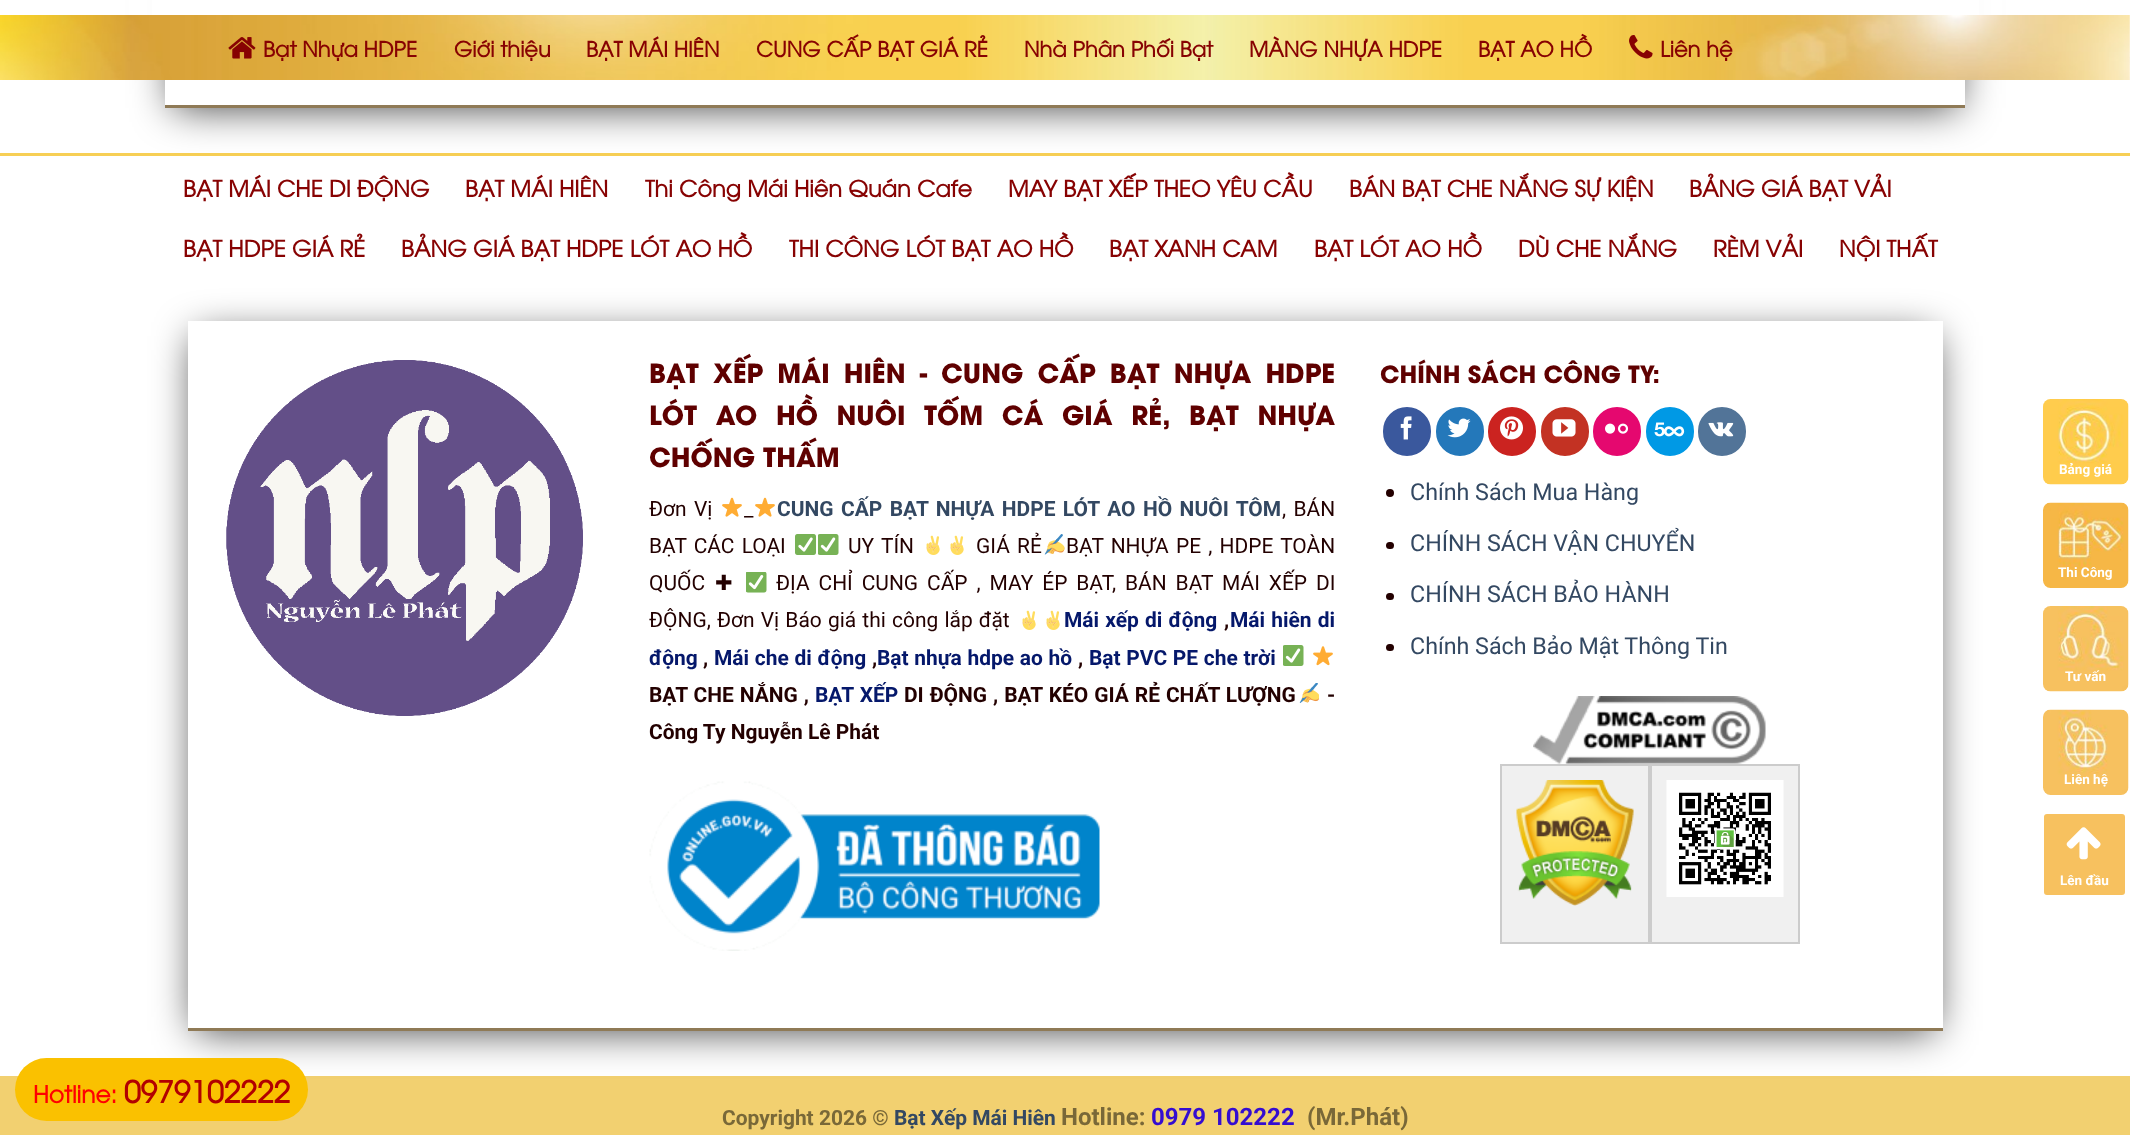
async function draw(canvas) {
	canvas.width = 2130;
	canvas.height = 1135;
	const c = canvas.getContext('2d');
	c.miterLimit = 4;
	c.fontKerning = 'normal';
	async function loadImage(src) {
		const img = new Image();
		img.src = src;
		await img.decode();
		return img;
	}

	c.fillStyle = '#fff';
	c.fillRect(0, 0, 2130, 1135);
	c.fillStyle = '#f7cf55';
	c.fillRect(0, 153, 2130, 3);
	c.save();
	c.beginPath();
	c.moveTo(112, 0);
	c.lineTo(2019, 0);
	c.lineTo(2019, 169);
	c.lineTo(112, 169);
	c.closePath();
	c.moveTo(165, -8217);
	c.lineTo(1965, -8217);
	c.lineTo(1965, 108);
	c.lineTo(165, 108);
	c.closePath();
	c.clip('evenodd');
	c.fillStyle = '#000000bf';
	c.filter = 'blur(20px)';
	c.beginPath();
	c.rect(173, -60, 1785, 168);
	c.fill();
	c.filter = 'none';
	c.restore();
	c.fillStyle = '#8f7a56';
	c.fillRect(165, 105, 1800, 3);
	c.save();
	c.beginPath();
	c.moveTo(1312, 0);
	c.lineTo(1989, 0);
	c.lineTo(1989, 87);
	c.lineTo(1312, 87);
	c.closePath();
	c.moveTo(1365, -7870);
	c.lineTo(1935, -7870);
	c.lineTo(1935, 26);
	c.lineTo(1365, 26);
	c.closePath();
	c.clip('evenodd');
	c.fillStyle = '#000000bf';
	c.filter = 'blur(20px)';
	c.beginPath();
	c.rect(1373, -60, 555, 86);
	c.fill();
	c.filter = 'none';
	c.restore();
	c.save();
	c.beginPath();
	c.rect(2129, 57, 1, 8);
	c.clip();
	c.fillStyle = '#00000026';
	c.filter = 'blur(7.5px)';
	c.beginPath();
	c.rect(2, 2, 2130, 57);
	c.fill();
	c.filter = 'none';
	c.restore();
	c.fillStyle = '#ffffffe6';
	c.fillRect(129, 0, 1873, 57);
	c.fillRect(152, 0, 1827, 57);
	c.drawImage(await loadImage('img1.png'), 0, 15, 2130, 65);
	c.drawImage(await loadImage('img2.png'), 228, 37, 28, 22);
	c.font = 'bold 21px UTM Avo';
	c.fillStyle = '#870202';
	for (const [text, x, y] of [
		['Bạt Nhựa HDPE', 263, 57],
		['Giới thiệu', 454, 57],
		['BẠT MÁI HIÊN', 586, 57],
		['CUNG CẤP BẠT GIÁ RẺ', 756, 57],
		['Nhà Phân Phối Bạt', 1024, 57],
		['MÀNG NHỰA HDPE', 1249, 57],
		['BẠT AO HỒ', 1478, 57],
	]) {
		c.fillText(text, x, y);
	}
	c.drawImage(await loadImage('img3.png'), 1629, 35, 24, 24);
	c.fillText('Liên hệ', 1660, 57);
	c.font = 'bold 22.5px UTM Avo';
	for (const [text, x, y] of [
		['BẠT MÁI CHE DI ĐỘNG', 183, 197],
		['BẠT MÁI HIÊN', 465, 197],
		['Thi Công Mái Hiên Quán Cafe', 645, 197],
		['MAY BẠT XẾP THEO YÊU CẦU', 1008, 197],
		['BÁN BẠT CHE NẮNG SỰ KIỆN', 1349, 197],
		['BẢNG GIÁ BẠT VẢI', 1689, 197],
		['BẠT HDPE GIÁ RẺ', 183, 257],
		['BẢNG GIÁ BẠT HDPE LÓT AO HỒ', 401, 257],
		['THI CÔNG LÓT BẠT AO HỒ', 789, 257],
		['BẠT XANH CAM', 1109, 257],
		['BẠT LÓT AO HỒ', 1314, 257],
		['DÙ CHE NẮNG', 1518, 257],
		['RÈM VẢI', 1713, 257],
		['NỘI THẤT', 1839, 257],
	]) {
		c.fillText(text, x, y);
	}
	c.fillStyle = '#f2d070';
	c.fillRect(0, 1076, 2130, 59);
	c.save();
	c.beginPath();
	c.moveTo(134, 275);
	c.lineTo(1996, 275);
	c.lineTo(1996, 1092);
	c.lineTo(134, 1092);
	c.closePath();
	c.moveTo(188, 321);
	c.lineTo(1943, 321);
	c.lineTo(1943, 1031);
	c.lineTo(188, 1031);
	c.closePath();
	c.clip('evenodd');
	c.fillStyle = '#000000bf';
	c.filter = 'blur(20px)';
	c.beginPath();
	c.rect(195, 336, 1740, 695);
	c.fill();
	c.filter = 'none';
	c.restore();
	c.fillStyle = '#8f7a56';
	c.fillRect(188, 1028, 1755, 3);
	c.drawImage(await loadImage('img4.png'), 226, 360, 357, 356);
	c.wordSpacing = '6px';
	c.font = 'bold 26.2px "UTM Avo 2"';
	c.fillStyle = '#5f0000';
	c.fillText('BẠT XẾP MÁI HIÊN - CUNG CẤP BẠT NHỰA HDPE', 649, 383);
	c.wordSpacing = '10.5px';
	c.fillText('LÓT AO HỒ NUÔI TỐM CÁ GIÁ RẺ, BẠT NHỰA', 649, 425);
	c.wordSpacing = '0px';
	c.fillText('CHỐNG THẤM', 649, 467);
	c.wordSpacing = '2.25px';
	c.font = '20.95px Roboto';
	c.fillStyle = '#230000';
	c.fillText('Đơn Vị', 649, 516);
	c.drawImage(await loadImage('img5.png'), 722, 497, 20, 20);
	c.wordSpacing = '0px';
	c.fillText('_', 744, 516);
	c.drawImage(await loadImage('img5.png'), 755, 497, 20, 20);
	c.wordSpacing = '2.25px';
	c.font = 'bold 20.95px Roboto';
	c.fillStyle = '#334862';
	c.fillText('CUNG CẤP BẠT NHỰA HDPE LÓT AO HỒ NUÔI TÔM', 777, 516);
	c.font = '20.95px Roboto';
	c.fillStyle = '#230000';
	c.fillText(', BÁN', 1282, 516);
	c.wordSpacing = '2px';
	c.fillText('BẠT CÁC LOẠI', 649, 553);
	c.drawImage(await loadImage('img6.png'), 795, 534, 21, 21);
	c.drawImage(await loadImage('img7.png'), 818, 534, 21, 21);
	c.fillText('UY TÍN', 848, 553);
	c.drawImage(await loadImage('img8.png'), 926, 535, 14, 20);
	c.drawImage(await loadImage('img8.png'), 950, 535, 14, 20);
	c.fillText('GIÁ RẺ', 976, 553);
	c.drawImage(await loadImage('img9.png'), 1044, 534, 21, 21);
	c.fillText('BẠT NHỰA PE , HDPE TOÀN', 1066, 553);
	c.wordSpacing = '0px';
	c.fillText('QUỐC', 649, 590);
	c.font = '20.95px DejaVu Sans';
	c.fillText('✚', 715, 590);
	c.drawImage(await loadImage('img10.png'), 746, 572, 21, 21);
	c.wordSpacing = '3.75px';
	c.font = '20.95px Roboto';
	c.fillText('ĐỊA CHỈ CUNG CẤP , MAY ÉP BẠT, BÁN BẠT MÁI XẾP DI', 776, 590);
	c.wordSpacing = '1px';
	c.fillText('ĐỘNG, Đơn Vị Báo giá thi công lắp đặt', 649, 627);
	c.drawImage(await loadImage('img8.png'), 1022, 610, 14, 20);
	c.drawImage(await loadImage('img8.png'), 1046, 610, 14, 20);
	c.font = 'bold 20.95px Roboto';
	c.fillStyle = '#05186b';
	c.fillText('Mái xếp di động', 1064, 627);
	c.wordSpacing = '0px';
	c.fillStyle = '#230000';
	c.fillText(',', 1224, 627);
	c.wordSpacing = '1px';
	c.fillStyle = '#05186b';
	c.fillText('Mái hiên di', 1230, 627);
	c.wordSpacing = '0px';
	c.fillText('động', 649, 665);
	c.fillStyle = '#230000';
	c.fillText(',', 703, 665);
	c.wordSpacing = '0.5px';
	c.fillStyle = '#05186b';
	c.fillText('Mái che di động', 714, 665);
	c.wordSpacing = '0px';
	c.fillStyle = '#230000';
	c.fillText(',', 872, 665);
	c.wordSpacing = '0.5px';
	c.fillStyle = '#05186b';
	c.fillText('Bạt nhựa hdpe ao hồ', 877, 665);
	c.wordSpacing = '0px';
	c.fillStyle = '#230000';
	c.fillText(',', 1078, 665);
	c.wordSpacing = '0.5px';
	c.fillStyle = '#05186b';
	c.fillText('Bạt PVC PE che trời', 1089, 665);
	c.drawImage(await loadImage('img7.png'), 1283, 645, 21, 21);
	c.drawImage(await loadImage('img11.png'), 1313, 646, 20, 20);
	c.wordSpacing = '0.75px';
	c.fillStyle = '#230000';
	c.fillText('BẠT CHE NẮNG ,', 649, 702);
	c.wordSpacing = '1px';
	c.fillStyle = '#05186b';
	c.fillText('BẠT XẾP', 815, 702);
	c.wordSpacing = '0.75px';
	c.fillStyle = '#230000';
	c.fillText('DI ĐỘNG , BẠT KÉO GIÁ RẺ CHẤT LƯỢNG', 904, 702);
	c.drawImage(await loadImage('img12.png'), 1299, 683, 20, 20);
	c.wordSpacing = '0px';
	c.fillText('-', 1327, 702);
	c.fillText('Công Ty Nguyễn Lê Phát', 649, 739);
	c.drawImage(await loadImage('img13.png'), 649, 781, 451, 170);
	c.font = 'bold 23.5px "UTM Avo 2"';
	c.fillStyle = '#5f0000';
	c.fillText('CHÍNH SÁCH CÔNG TY:', 1380, 383);
	c.fillStyle = '#3a589d';
	c.beginPath();
	c.roundRect(1384, 408, 46, 47, 23);
	c.fill();
	c.strokeStyle = '#3a589d';
	c.lineWidth = 2;
	c.stroke();
	c.drawImage(await loadImage('img14.png'), 1400, 416, 12, 24);
	c.fillStyle = '#2478ba';
	c.beginPath();
	c.roundRect(1437, 408, 46, 47, 23);
	c.fill();
	c.strokeStyle = '#2478ba';
	c.stroke();
	c.drawImage(await loadImage('img15.png'), 1447, 418, 24, 20);
	c.fillStyle = '#cb2320';
	c.beginPath();
	c.roundRect(1489, 408, 46, 47, 23);
	c.fill();
	c.strokeStyle = '#cb2320';
	c.stroke();
	c.drawImage(await loadImage('img16.png'), 1500, 416, 23, 24);
	c.fillStyle = '#c33223';
	c.beginPath();
	c.roundRect(1542, 408, 46, 47, 23);
	c.fill();
	c.strokeStyle = '#c33223';
	c.stroke();
	c.drawImage(await loadImage('img17.png'), 1552, 419, 24, 18);
	c.fillStyle = '#e5086f';
	c.beginPath();
	c.roundRect(1594, 408, 46, 47, 23);
	c.fill();
	c.strokeStyle = '#e5086f';
	c.stroke();
	c.drawImage(await loadImage('img18.png'), 1605, 423, 23, 11);
	c.fillStyle = '#0099e5';
	c.beginPath();
	c.roundRect(1647, 408, 46, 47, 23);
	c.fill();
	c.strokeStyle = '#0099e5';
	c.stroke();
	c.drawImage(await loadImage('img19.png'), 1654, 422, 31, 15);
	c.fillStyle = '#527498';
	c.beginPath();
	c.roundRect(1699, 408, 46, 47, 23);
	c.fill();
	c.strokeStyle = '#527498';
	c.stroke();
	c.drawImage(await loadImage('img20.png'), 1708, 422, 26, 15);
	c.fillStyle = '#230000';
	c.beginPath();
	c.arc(1390, 493, 4, 0, 2 * Math.PI);
	c.fill();
	c.font = '23.25px Roboto';
	c.fillStyle = '#334862';
	c.fillText('Chính Sách Mua Hàng', 1410, 500);
	c.fillStyle = '#230000';
	c.beginPath();
	c.roundRect(1386, 542, 8, 7, 3.5);
	c.fill();
	c.fillStyle = '#334862';
	c.fillText('CHÍNH SÁCH VẬN CHUYỂN', 1410, 551);
	c.fillStyle = '#230000';
	c.beginPath();
	c.roundRect(1386, 593, 8, 7, 3.5);
	c.fill();
	c.fillStyle = '#334862';
	c.fillText('CHÍNH SÁCH BẢO HÀNH', 1410, 602);
	c.fillStyle = '#230000';
	c.beginPath();
	c.roundRect(1386, 644, 8, 7, 3.5);
	c.fill();
	c.fillStyle = '#334862';
	c.fillText('Chính Sách Bảo Mật Thông Tin', 1410, 654);
	c.drawImage(await loadImage('img21.png'), 1533, 696, 233, 68);
	c.fillStyle = '#f0f0f0';
	c.beginPath();
	c.rect(1501, 765, 148, 178);
	c.fill();
	c.strokeStyle = '#ccc';
	c.stroke();
	c.drawImage(await loadImage('img22.png'), 1516, 780, 118, 126);
	c.beginPath();
	c.rect(1651, 765, 148, 178);
	c.fill();
	c.stroke();
	c.drawImage(await loadImage('img23.png'), 1666, 780, 118, 117);
	c.font = 'bold 20.95px Roboto';
	c.fillStyle = '#796838';
	c.fillText('Copyright 2026 ©', 722, 1125);
	c.fillStyle = '#334862';
	c.fillText('Bạt Xếp Mái Hiên', 894, 1125);
	c.font = 'bold 24px Roboto';
	c.fillStyle = '#796838';
	c.fillText('Hotline:', 1061, 1125);
	c.fillStyle = '#340dd0';
	c.fillText('0979 102222', 1151, 1125);
	c.fillStyle = '#796838';
	c.fillText('(Mr.Phát)', 1307, 1125);
	c.drawImage(await loadImage('img24.png'), 2043, 399, 86, 86);
	c.font = 'bold 13.5px Roboto';
	c.fillStyle = '#fff';
	c.fillText('Bảng giá', 2059, 474);
	c.drawImage(await loadImage('img25.png'), 2043, 502, 86, 86);
	c.fillText('Thi Công', 2058, 577);
	c.drawImage(await loadImage('img26.png'), 2043, 606, 86, 86);
	c.fillText('Tư vấn', 2065, 681);
	c.drawImage(await loadImage('img27.png'), 2043, 709, 86, 86);
	c.fillText('Liên hệ', 2064, 784);
	c.fillStyle = '#f7c15f';
	c.beginPath();
	c.roundRect(2043, 813, 83, 83, 4);
	c.fill();
	c.strokeStyle = '#fff';
	c.stroke();
	c.drawImage(await loadImage('img28.png'), 2066, 827, 35, 33);
	c.fillStyle = '#fff';
	c.fillText('Lên đầu', 2060, 885);
	c.fillStyle = '#fac100';
	c.beginPath();
	c.roundRect(15, 1058, 293, 63, 31.5);
	c.fill();
	c.font = 'bold 23.25px UTM Avo';
	c.fillStyle = '#f00';
	c.fillText('Hotline:', 33, 1103);
	c.font = 'bold 30px UTM Avo';
	c.fillStyle = '#b20000';
	c.fillText('0979102222', 124, 1103);
}

draw(document.querySelector('canvas'));
